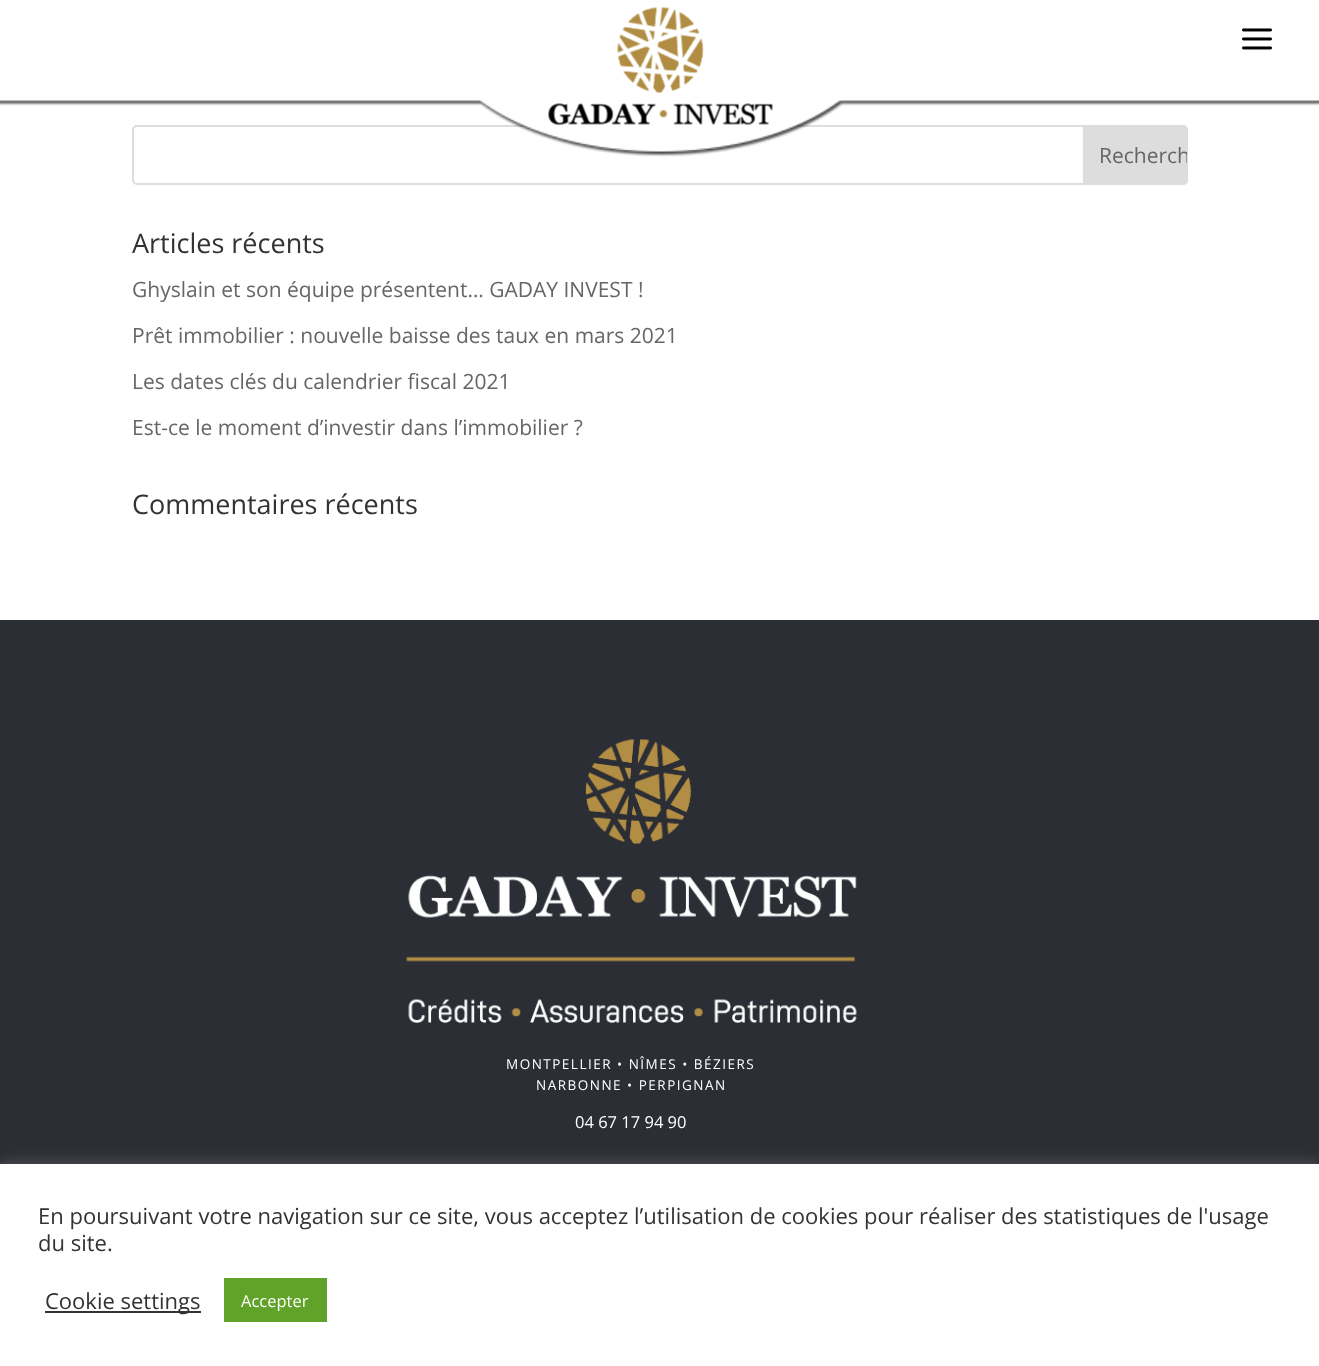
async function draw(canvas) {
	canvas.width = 1319;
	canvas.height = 1366;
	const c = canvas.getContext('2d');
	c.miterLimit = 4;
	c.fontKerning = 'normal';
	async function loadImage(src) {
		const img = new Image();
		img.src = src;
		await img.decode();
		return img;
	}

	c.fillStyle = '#fff';
	c.fillRect(0, 0, 1319, 1366);
	c.beginPath();
	c.roundRect(133, 126, 1054, 58, 4);
	c.strokeStyle = '#ddd';
	c.lineWidth = 2;
	c.stroke();
	c.fillStyle = '#ddd';
	c.beginPath();
	c.roundRect(1084, 126, 103, 58, [0, 4, 4, 0]);
	c.fill();
	c.stroke();
	c.save();
	c.beginPath();
	c.roundRect(1085, 126, 102, 57, [0, 3, 3, 0]);
	c.clip();
	c.font = '21px Open Sans';
	c.fillStyle = '#666';
	c.fillText('Recherch', 1099, 163);
	c.restore();
	c.drawImage(await loadImage('img3.png'), 0, 100, 1319, 57);
	c.drawImage(await loadImage('img1.png'), 547, 7, 226, 119);
	c.drawImage(await loadImage('img2.png'), 1242, 28, 30, 22);
	c.font = '27px Open Sans';
	c.fillStyle = '#333';
	c.fillText('Articles récents', 132, 253);
	c.font = '21px Open Sans';
	c.fillStyle = '#666';
	for (const [text, x, y] of [
		['Ghyslain et son équipe présentent… GADAY INVEST !', 132, 297],
		['Prêt immobilier : nouvelle baisse des taux en mars 2021', 132, 343],
		['Les dates clés du calendrier fiscal 2021', 132, 389],
		['Est-ce le moment d’investir dans l’immobilier ?', 132, 435],
	]) {
		c.fillText(text, x, y);
	}
	c.font = '27px Open Sans';
	c.fillStyle = '#333';
	c.fillText('Commentaires récents', 132, 514);
	c.fillStyle = '#2c2e35';
	c.fillRect(0, 620, 1319, 544);
	c.drawImage(await loadImage('img4.png'), 406, 739, 451, 284);
	c.letterSpacing = '1.5px';
	c.font = '13.5px Open Sans';
	c.fillStyle = '#fff';
	c.fillText('MONTPELLIER • NÎMES • BÉZIERS', 506, 1069);
	c.fillText('NARBONNE • PERPIGNAN', 536, 1090);
	c.letterSpacing = '0px';
	c.font = '16.5px Open Sans';
	c.fillText('04 67 17 94 90', 575, 1128);
	c.fillStyle = '#acabab4d';
	c.filter = 'blur(7.5px)';
	c.beginPath();
	c.rect(0, 1163, 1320, 202);
	c.fill();
	c.filter = 'none';
	c.fillStyle = '#fff';
	c.fillRect(0, 1164, 1319, 202);
	c.font = '22px Open Sans';
	c.fillStyle = '#333';
	c.fillText('En poursuivant votre navigation sur ce site, vous acceptez l’utilisation de cookies pour réaliser des statistiques de l\'usage', 38, 1224);
	c.fillText('du site.', 38, 1251);
	c.fillRect(45, 1311, 156, 2);
	c.fillText('Cookie settings', 45, 1309);
	c.fillStyle = '#61a229';
	c.fillRect(224, 1278, 103, 44);
	c.font = '16.5px Open Sans';
	c.fillStyle = '#fff';
	c.fillText('Accepter', 241, 1307);
}

draw(document.querySelector('canvas'));
